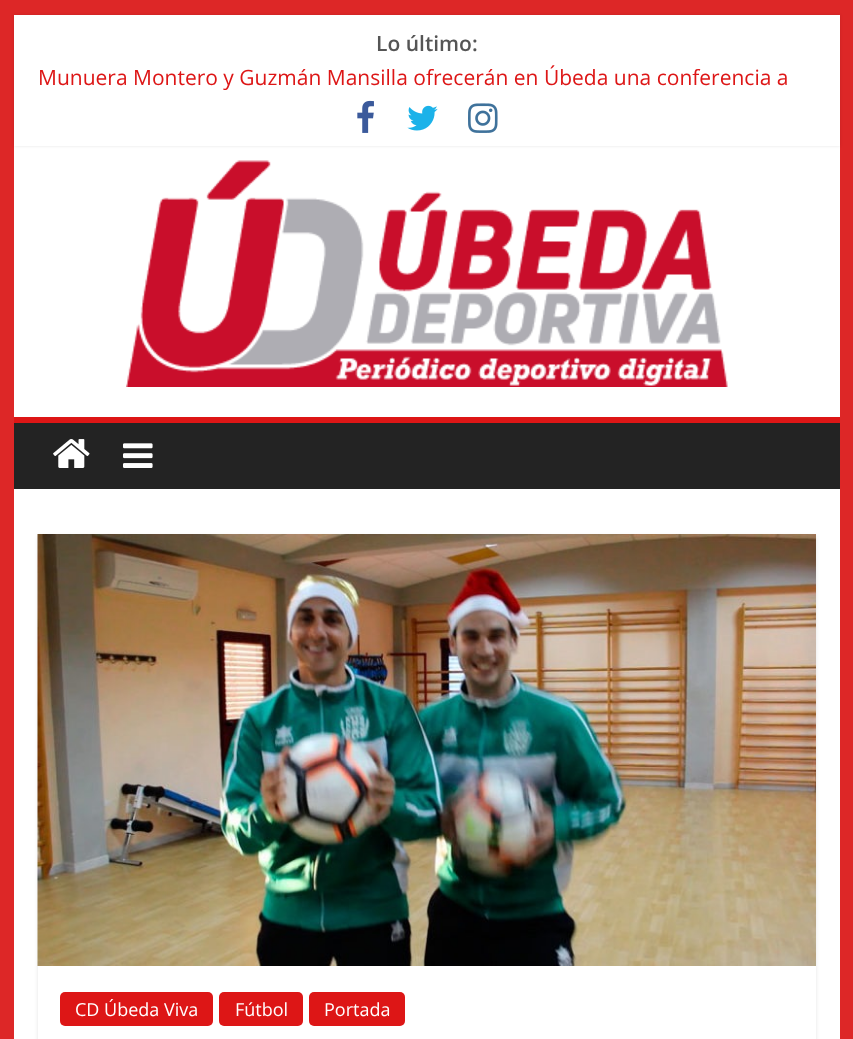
async function draw(canvas) {
	canvas.width = 853;
	canvas.height = 1039;
	const c = canvas.getContext('2d');
	c.miterLimit = 4;
	c.fontKerning = 'normal';
	async function loadImage(src) {
		const img = new Image();
		img.src = src;
		await img.decode();
		return img;
	}

	c.fillStyle = '#dd2727';
	c.fillRect(0, 0, 853, 1039);
	c.fillStyle = '#fff';
	c.fillRect(14, 146, 826, 271);
	c.fillStyle = '#0000001a';
	c.filter = 'blur(1.5px)';
	c.beginPath();
	c.rect(14, 15, 826, 131);
	c.fill();
	c.filter = 'none';
	c.fillStyle = '#fff';
	c.fillRect(14, 15, 826, 131);
	c.font = '600 21px Open Sans';
	c.fillStyle = '#555';
	c.fillText('Lo último:', 376, 51);
	c.font = '21px Open Sans';
	c.fillStyle = '#dd1616';
	c.fillText('Munuera Montero y Guzmán Mansilla ofrecerán en Úbeda una conferencia a', 38, 85);
	c.drawImage(await loadImage('img1.png'), 357, 100, 17, 33);
	c.drawImage(await loadImage('img2.png'), 407, 105, 31, 26);
	c.drawImage(await loadImage('img3.png'), 468, 103, 30, 30);
	c.drawImage(await loadImage('img4.png'), 126, 160, 602, 227);
	c.fillStyle = '#232323';
	c.fillRect(14, 423, 826, 66);
	c.fillStyle = '#dd1616';
	c.fillRect(14, 417, 826, 6);
	c.drawImage(await loadImage('img5.png'), 53, 439, 37, 29);
	c.drawImage(await loadImage('img6.png'), 123, 443, 30, 25);
	c.fillStyle = '#fff';
	c.fillRect(14, 489, 826, 550);
	c.save();
	c.beginPath();
	c.moveTo(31, 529);
	c.lineTo(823, 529);
	c.lineTo(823, 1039);
	c.lineTo(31, 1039);
	c.closePath();
	c.moveTo(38, 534);
	c.lineTo(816, 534);
	c.lineTo(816, 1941);
	c.lineTo(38, 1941);
	c.closePath();
	c.clip('evenodd');
	c.fillStyle = '#0000001a';
	c.filter = 'blur(2px)';
	c.beginPath();
	c.rect(38, 536, 778, 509);
	c.fill();
	c.filter = 'none';
	c.restore();
	c.drawImage(await loadImage('img7.png'), 37, 534, 779, 432);
	c.fillStyle = '#dd1616';
	c.beginPath();
	c.roundRect(60, 992, 153, 34, 5);
	c.fill();
	c.font = '18px Open Sans';
	c.fillStyle = '#fff';
	c.fillText('CD Úbeda Viva', 75, 1016);
	c.fillStyle = '#dd1616';
	c.beginPath();
	c.roundRect(219, 992, 84, 34, 5);
	c.fill();
	c.fillStyle = '#fff';
	c.fillText('Fútbol', 235, 1016);
	c.fillStyle = '#dd1616';
	c.beginPath();
	c.roundRect(309, 992, 96, 34, 5);
	c.fill();
	c.fillStyle = '#fff';
	c.fillText('Portada', 324, 1016);
}

draw(document.querySelector('canvas'));
